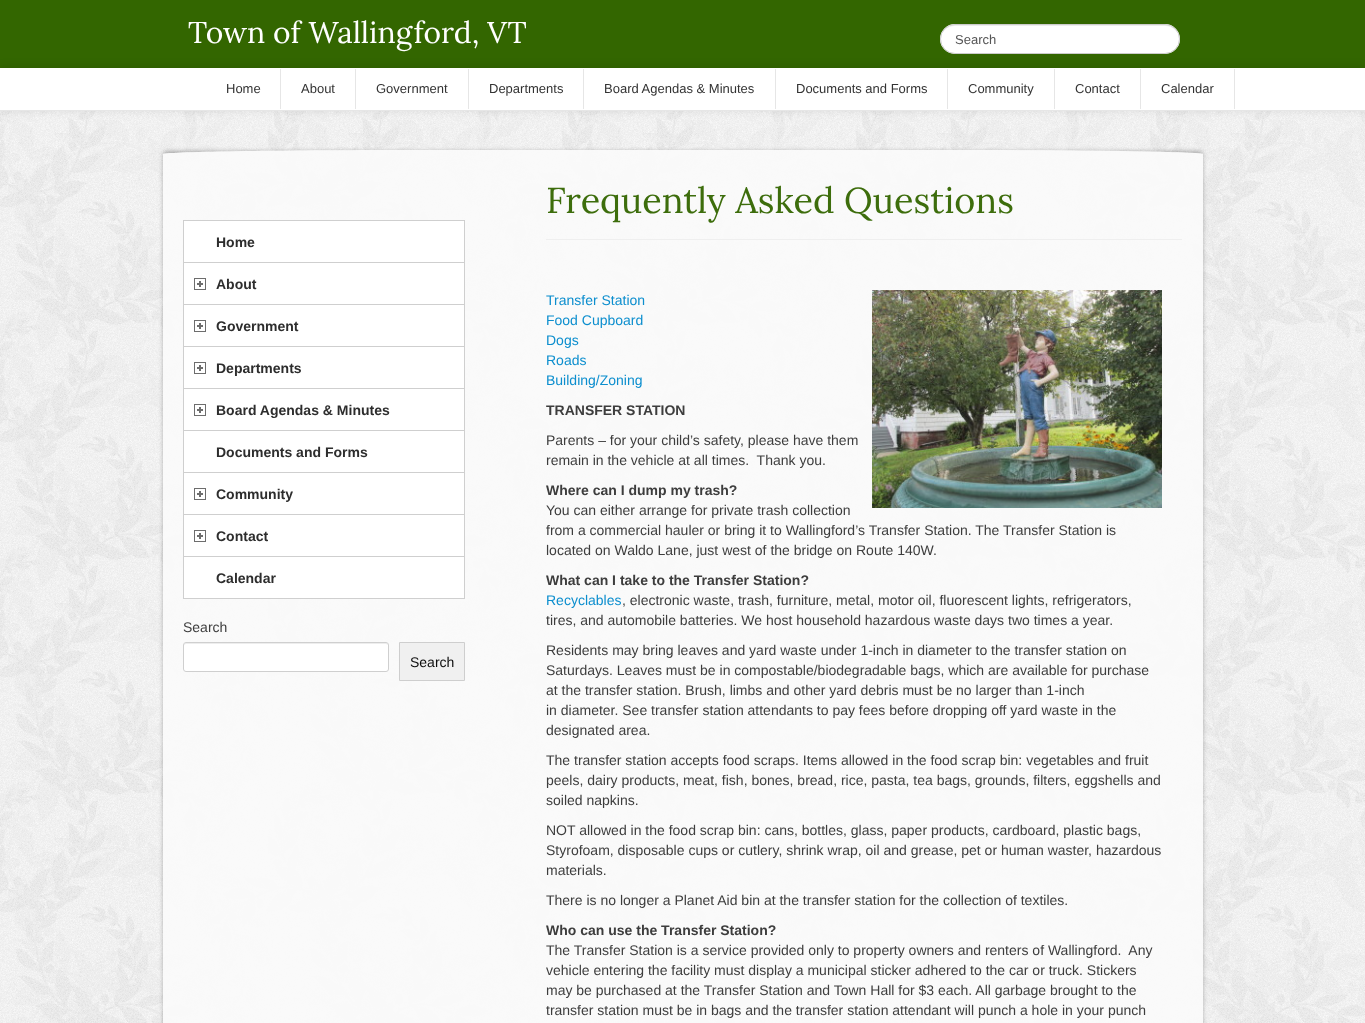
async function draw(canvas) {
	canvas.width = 1365;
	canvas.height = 1023;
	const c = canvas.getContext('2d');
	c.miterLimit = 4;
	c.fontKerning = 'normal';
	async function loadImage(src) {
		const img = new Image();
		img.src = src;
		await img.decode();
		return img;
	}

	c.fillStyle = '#fff';
	c.fillRect(0, 0, 1365, 1023);
	c.fillStyle = '#360';
	c.fillRect(0, 0, 1365, 68);
	c.drawImage(await loadImage('img1.png'), 0, 111, 1365, 912);
	c.fillStyle = '#0000001a';
	c.filter = 'blur(5px)';
	c.beginPath();
	c.rect(0, 67, 1365, 43);
	c.fill();
	c.filter = 'none';
	c.font = '30px Lora';
	c.fillStyle = '#fff';
	c.fillText('Town of Wallingford, VT', 188, 43);
	c.beginPath();
	c.roundRect(940, 24, 240, 30, 15);
	c.fill();
	c.fillStyle = '#ececec';
	c.beginPath();
	c.moveTo(955, 26);
	c.lineTo(1165, 26);
	c.bezierCurveTo(1173, 26, 1179, 32, 1179, 39);
	c.bezierCurveTo(1179, 32, 1173, 25, 1165, 25);
	c.lineTo(955, 25);
	c.bezierCurveTo(947, 25, 941, 32, 941, 39);
	c.bezierCurveTo(941, 32, 947, 26, 955, 26);
	c.closePath();
	c.fill();
	c.beginPath();
	c.roundRect(940.5, 24.5, 239, 29, 14.5);
	c.strokeStyle = '#ccc';
	c.stroke();
	c.font = '13px Liberation Sans';
	c.fillStyle = '#555';
	c.fillText('Search', 955, 44);
	for (const [x, y, w, h, color] of [
		[0, 68, 1365, 42, '#fff'],
		[0, 110, 1365, 1, '#e6e6e6'],
		[280, 69, 1, 40, '#e6e6e6'],
	]) {
		c.fillStyle = color;
		c.fillRect(x, y, w, h);
	}
	c.fillStyle = '#333';
	c.fillText('Home', 226, 93);
	c.fillStyle = '#e6e6e6';
	c.fillRect(355, 69, 1, 40);
	c.fillStyle = '#333';
	c.fillText('About', 301, 93);
	c.fillStyle = '#e6e6e6';
	c.fillRect(468, 69, 1, 40);
	c.fillStyle = '#333';
	c.fillText('Government', 376, 93);
	c.fillStyle = '#e6e6e6';
	c.fillRect(583, 69, 1, 40);
	c.fillStyle = '#333';
	c.fillText('Departments', 489, 93);
	c.fillStyle = '#e6e6e6';
	c.fillRect(775, 69, 1, 40);
	c.fillStyle = '#333';
	c.fillText('Board Agendas & Minutes', 604, 93);
	c.fillStyle = '#e6e6e6';
	c.fillRect(947, 69, 1, 40);
	c.fillStyle = '#333';
	c.fillText('Documents and Forms', 796, 93);
	c.fillStyle = '#e6e6e6';
	c.fillRect(1054, 69, 1, 40);
	c.fillStyle = '#333';
	c.fillText('Community', 968, 93);
	c.fillStyle = '#e6e6e6';
	c.fillRect(1140, 69, 1, 40);
	c.fillStyle = '#333';
	c.fillText('Contact', 1075, 93);
	c.fillStyle = '#e6e6e6';
	c.fillRect(1234, 69, 1, 40);
	c.fillStyle = '#333';
	c.fillText('Calendar', 1161, 93);
	c.save();
	c.beginPath();
	c.moveTo(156, 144);
	c.lineTo(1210, 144);
	c.lineTo(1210, 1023);
	c.lineTo(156, 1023);
	c.closePath();
	c.moveTo(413, 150);
	c.lineTo(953, 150);
	c.bezierCurveTo(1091, 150, 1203, 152, 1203, 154);
	c.lineTo(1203, 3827);
	c.lineTo(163, 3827);
	c.lineTo(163, 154);
	c.bezierCurveTo(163, 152, 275, 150, 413, 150);
	c.closePath();
	c.clip('evenodd');
	c.fillStyle = '#00000047';
	c.filter = 'blur(2px)';
	c.beginPath();
	c.roundRect(163, 151, 1040, 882, 4);
	c.fill();
	c.filter = 'none';
	c.restore();
	c.fillStyle = '#fafafaf2';
	c.beginPath();
	c.moveTo(413, 150);
	c.lineTo(953, 150);
	c.bezierCurveTo(1091, 150, 1203, 152, 1203, 154);
	c.lineTo(1203, 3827);
	c.lineTo(163, 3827);
	c.lineTo(163, 154);
	c.bezierCurveTo(163, 152, 275, 150, 413, 150);
	c.closePath();
	c.fill();
	for (const [x, y, w, h, color] of [
		[183, 221, 282, 378, '#fff'],
		[183, 220, 282, 1, '#cfcfcf'],
		[464, 220, 1, 379, '#ccccccf2'],
		[183, 220, 1, 379, '#ccccccf2'],
		[184, 262, 280, 1, '#cfcfcf'],
	]) {
		c.fillStyle = color;
		c.fillRect(x, y, w, h);
	}
	c.font = 'bold 14px Liberation Sans';
	c.fillStyle = '#2d2d2d';
	c.fillText('Home', 216, 247);
	c.drawImage(await loadImage('img2.png'), 194, 278, 12, 12);
	c.fillStyle = '#cfcfcf';
	c.fillRect(184, 304, 280, 1);
	c.fillStyle = '#2d2d2d';
	c.fillText('About', 216, 289);
	c.drawImage(await loadImage('img2.png'), 194, 320, 12, 12);
	c.fillStyle = '#cfcfcf';
	c.fillRect(184, 346, 280, 1);
	c.fillStyle = '#2d2d2d';
	c.fillText('Government', 216, 331);
	c.drawImage(await loadImage('img2.png'), 194, 362, 12, 12);
	c.fillStyle = '#cfcfcf';
	c.fillRect(184, 388, 280, 1);
	c.fillStyle = '#2d2d2d';
	c.fillText('Departments', 216, 373);
	c.drawImage(await loadImage('img2.png'), 194, 404, 12, 12);
	c.fillStyle = '#cfcfcf';
	c.fillRect(184, 430, 280, 1);
	c.fillStyle = '#2d2d2d';
	c.fillText('Board Agendas & Minutes', 216, 415);
	c.fillStyle = '#cfcfcf';
	c.fillRect(184, 472, 280, 1);
	c.fillStyle = '#2d2d2d';
	c.fillText('Documents and Forms', 216, 457);
	c.drawImage(await loadImage('img2.png'), 194, 488, 12, 12);
	c.fillStyle = '#cfcfcf';
	c.fillRect(184, 514, 280, 1);
	c.fillStyle = '#2d2d2d';
	c.fillText('Community', 216, 499);
	c.drawImage(await loadImage('img2.png'), 194, 530, 12, 12);
	c.fillStyle = '#cfcfcf';
	c.fillRect(184, 556, 280, 1);
	c.fillStyle = '#2d2d2d';
	c.fillText('Contact', 216, 541);
	c.fillStyle = '#cfcfcf';
	c.fillRect(184, 598, 280, 1);
	c.fillStyle = '#2d2d2d';
	c.fillText('Calendar', 216, 583);
	c.font = '14px Liberation Sans';
	c.fillStyle = '#3d3d3d';
	c.fillText('Search', 183, 632);
	c.fillStyle = '#fff';
	c.beginPath();
	c.roundRect(183, 642, 206, 30, 3);
	c.fill();
	c.fillStyle = '#ededed';
	c.beginPath();
	c.moveTo(186, 644);
	c.lineTo(386, 644);
	c.lineTo(388, 645);
	c.lineTo(388, 646);
	c.bezierCurveTo(388, 645, 388, 643, 386, 643);
	c.lineTo(186, 643);
	c.bezierCurveTo(184, 643, 184, 645, 184, 646);
	c.bezierCurveTo(184, 645, 185, 644, 186, 644);
	c.closePath();
	c.fill();
	c.beginPath();
	c.roundRect(183.5, 642.5, 205, 29, 2.5);
	c.strokeStyle = '#ccccccf2';
	c.stroke();
	c.fillStyle = '#f0f0f0';
	c.beginPath();
	c.rect(399.5, 642.5, 65, 38);
	c.fill();
	c.strokeStyle = '#cecece';
	c.stroke();
	c.fillStyle = '#0c0c0c';
	c.fillText('Search', 410, 667);
	c.fillStyle = '#efefef';
	c.fillRect(546, 239, 636, 1);
	c.font = '36px Lora';
	c.fillStyle = '#3d6d0c';
	c.fillText('Frequently Asked Questions', 546, 213);
	c.font = '14px Liberation Sans';
	c.fillStyle = '#0c8ece';
	c.fillText('Transfer Station', 546, 305);
	c.drawImage(await loadImage('img3.png'), 872, 290, 290, 218);
	for (const [text, x, y] of [
		['Food Cupboard', 546, 325],
		['Dogs', 546, 345],
		['Roads', 546, 365],
		['Building/Zoning', 546, 385],
	]) {
		c.fillText(text, x, y);
	}
	c.font = 'bold 14px Liberation Sans';
	c.fillStyle = '#3d3d3d';
	c.fillText('TRANSFER STATION', 546, 415);
	c.font = '14px Liberation Sans';
	c.fillText('Parents – for your child’s safety, please have them', 546, 445);
	c.fillText('remain in the vehicle at all times.  Thank you.', 546, 465);
	c.font = 'bold 14px Liberation Sans';
	c.fillText('Where can I dump my trash?', 546, 495);
	c.font = '14px Liberation Sans';
	for (const [text, x, y] of [
		['You can either arrange for private trash collection', 546, 515],
		['from a commercial hauler or bring it to Wallingford’s Transfer Station. The Transfer Station is', 546, 535],
		['located on Waldo Lane, just west of the bridge on Route 140W.', 546, 555],
	]) {
		c.fillText(text, x, y);
	}
	c.font = 'bold 14px Liberation Sans';
	c.fillText('What can I take to the Transfer Station?', 546, 585);
	c.font = '14px Liberation Sans';
	c.fillStyle = '#0c8ece';
	c.fillText('Recyclables', 546, 605);
	c.fillStyle = '#3d3d3d';
	for (const [text, x, y] of [
		[', electronic waste, trash, furniture, metal, motor oil, fluorescent lights, refrigerators,', 622, 605],
		['tires, and automobile batteries. We host household hazardous waste days two times a year.', 546, 625],
		['Residents may bring leaves and yard waste under 1-inch in diameter to the transfer station on', 546, 655],
		['Saturdays. Leaves must be in compostable/biodegradable bags, which are available for purchase', 546, 675],
		['at the transfer station. Brush, limbs and other yard debris must be no larger than 1-inch', 546, 695],
		['in diameter. See transfer station attendants to pay fees before dropping off yard waste in the', 546, 715],
		['designated area.', 546, 735],
		['The transfer station accepts food scraps. Items allowed in the food scrap bin: vegetables and fruit', 546, 765],
		['peels, dairy products, meat, fish, bones, bread, rice, pasta, tea bags, grounds, filters, eggshells and', 546, 785],
		['soiled napkins.', 546, 805],
		['NOT allowed in the food scrap bin: cans, bottles, glass, paper products, cardboard, plastic bags,', 546, 835],
		['Styrofoam, disposable cups or cutlery, shrink wrap, oil and grease, pet or human waster, hazardous', 546, 855],
		['materials.', 546, 875],
		['There is no longer a Planet Aid bin at the transfer station for the collection of textiles.', 546, 905],
	]) {
		c.fillText(text, x, y);
	}
	c.font = 'bold 14px Liberation Sans';
	c.fillText('Who can use the Transfer Station?', 546, 935);
	c.font = '14px Liberation Sans';
	for (const [text, x, y] of [
		['The Transfer Station is a service provided only to property owners and renters of Wallingford.  Any', 546, 955],
		['vehicle entering the facility must display a municipal sticker adhered to the car or truck. Stickers', 546, 975],
		['may be purchased at the Transfer Station and Town Hall for $3 each. All garbage brought to the', 546, 995],
		['transfer station must be in bags and the transfer station attendant will punch a hole in your punch', 546, 1015],
	]) {
		c.fillText(text, x, y);
	}
}

draw(document.querySelector('canvas'));
